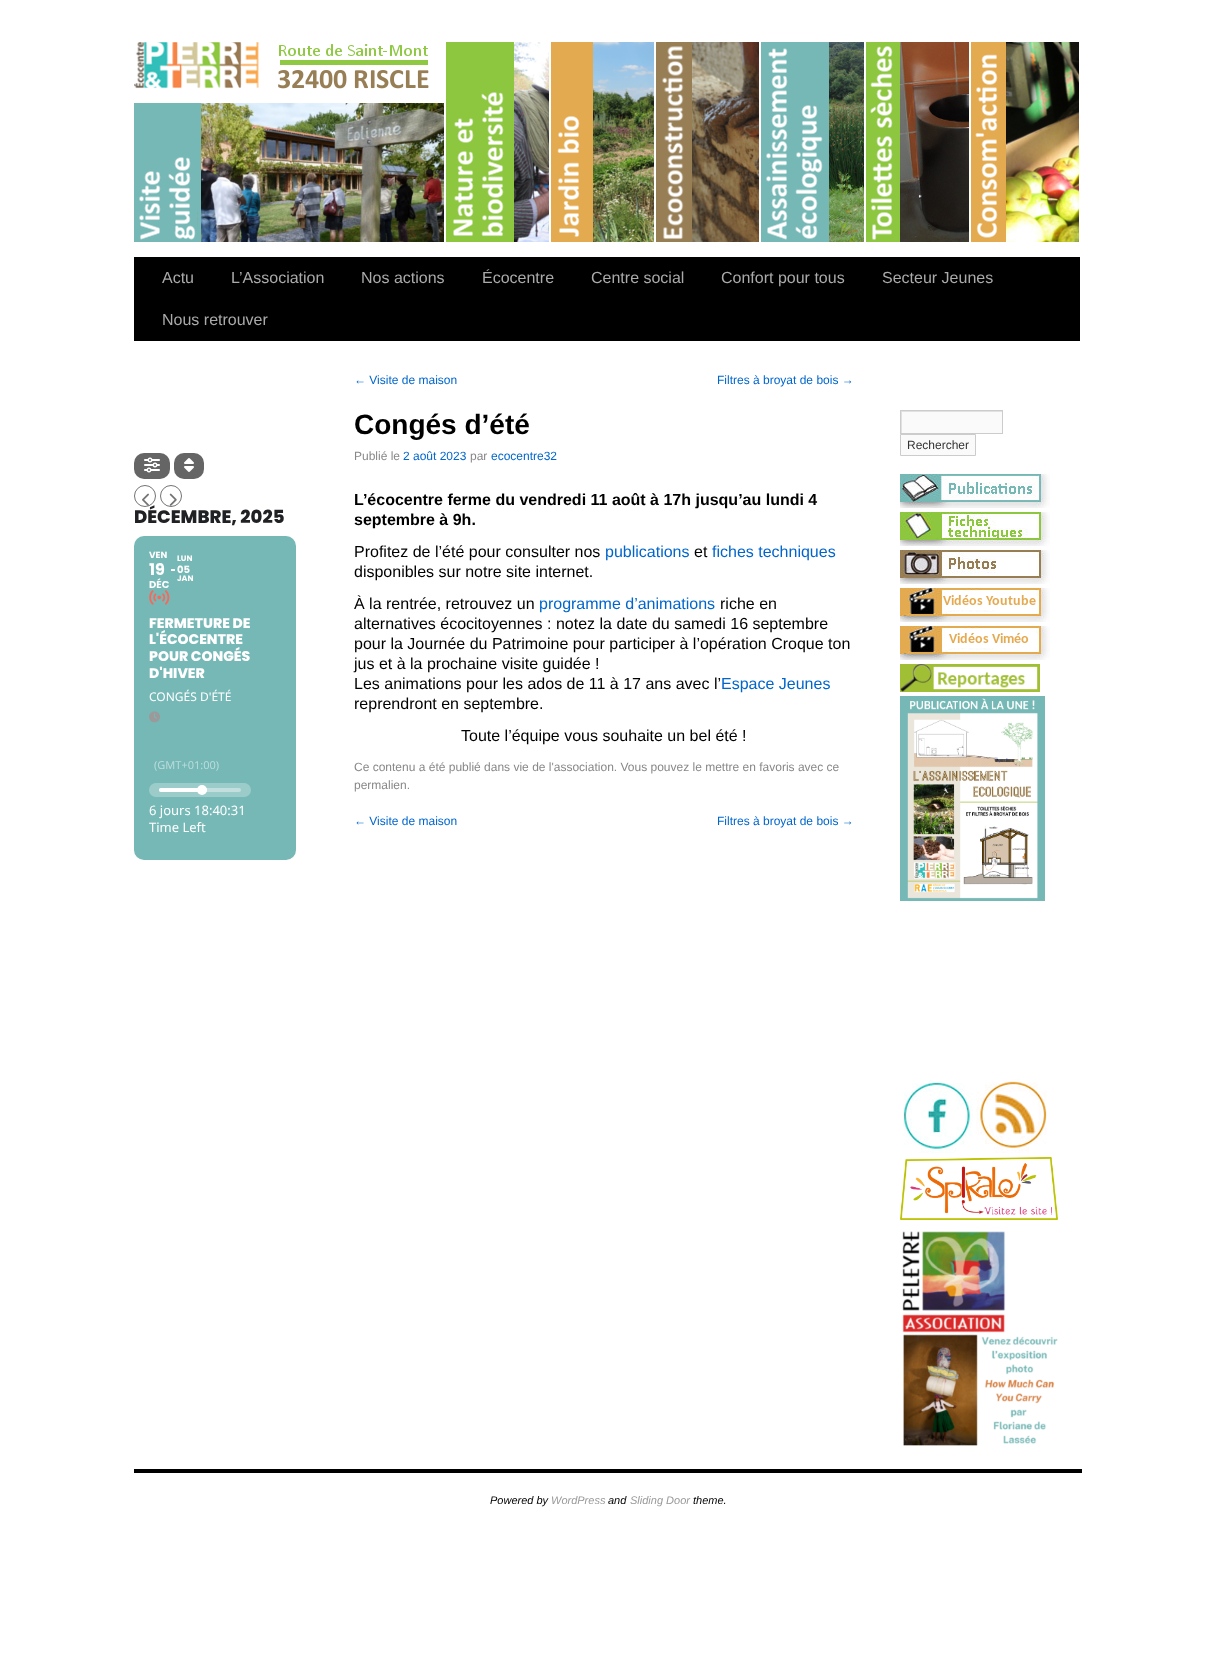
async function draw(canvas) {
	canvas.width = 1216;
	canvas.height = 1675;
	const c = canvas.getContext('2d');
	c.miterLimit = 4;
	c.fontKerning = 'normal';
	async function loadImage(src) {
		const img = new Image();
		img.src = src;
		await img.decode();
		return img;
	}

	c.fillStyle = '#fff';
	c.fillRect(0, 0, 1216, 1675);
	c.drawImage(await loadImage('img1.png'), 134, 42, 310, 200);
	c.drawImage(await loadImage('img2.png'), 446, 42, 103, 200);
	c.drawImage(await loadImage('img3.png'), 551, 42, 103, 200);
	c.drawImage(await loadImage('img4.png'), 656, 42, 103, 200);
	c.drawImage(await loadImage('img5.png'), 761, 42, 103, 200);
	c.drawImage(await loadImage('img6.png'), 866, 42, 103, 200);
	c.drawImage(await loadImage('img7.png'), 971, 42, 108, 200);
	c.fillStyle = '#000';
	c.fillRect(134, 257, 946, 84);
	c.font = '16px Liberation Sans';
	c.fillStyle = '#aaa';
	for (const [text, x, y] of [
		['Actu', 162, 283],
		['L’Association', 231, 283],
		['Nos actions', 361, 283],
		['Écocentre', 482, 283],
		['Centre social', 591, 283],
		['Confort pour tous', 721, 283],
		['Secteur Jeunes', 882, 283],
		['Nous retrouver', 162, 325],
	]) {
		c.fillText(text, x, y);
	}
	c.font = '12px Liberation Sans';
	c.fillStyle = '#06c';
	c.fillText('← Visite de maison', 354, 384);
	c.fillText('Filtres à broyat de bois →', 717, 384);
	c.font = 'bold 28px Liberation Sans';
	c.fillStyle = '#000';
	c.fillText('Congés d’été', 354, 434);
	c.font = '12px Liberation Sans';
	c.fillStyle = '#888';
	c.fillText('Publié le', 354, 460);
	c.fillStyle = '#06c';
	c.fillText('2 août 2023', 403, 460);
	c.fillStyle = '#888';
	c.fillText('par', 470, 460);
	c.fillStyle = '#06c';
	c.fillText('ecocentre32', 491, 460);
	c.font = 'bold 16px Liberation Sans';
	c.fillStyle = '#000';
	c.fillText('L’écocentre ferme du vendredi 11 août à 17h jusqu’au lundi 4', 354, 505);
	c.fillText('septembre à 9h.', 354, 525);
	c.font = '16px Liberation Sans';
	c.fillText('Profitez de l’été pour consulter nos', 354, 557);
	c.fillStyle = '#06c';
	c.fillText('publications', 605, 557);
	c.fillStyle = '#000';
	c.fillText('et', 694, 557);
	c.fillStyle = '#06c';
	c.fillText('fiches techniques', 712, 557);
	c.fillStyle = '#000';
	c.fillText('disponibles sur notre site internet.', 354, 577);
	c.fillText('À la rentrée, retrouvez un', 354, 609);
	c.fillStyle = '#06c';
	c.fillText('programme d’animations', 539, 609);
	c.fillStyle = '#000';
	for (const [text, x, y] of [
		['riche en', 720, 609],
		['alternatives écocitoyennes : notez la date du samedi 16 septembre', 354, 629],
		['pour la Journée du Patrimoine pour participer à l’opération Croque ton', 354, 649],
		['jus et à la prochaine visite guidée !', 354, 669],
		['Les animations pour les ados de 11 à 17 ans avec l’', 354, 689],
	]) {
		c.fillText(text, x, y);
	}
	c.fillStyle = '#06c';
	c.fillText('Espace Jeunes', 721, 689);
	c.fillStyle = '#000';
	c.fillText('reprendront en septembre.', 354, 709);
	c.fillText('Toute l’équipe vous souhaite un bel été !', 461, 741);
	c.font = '12px Liberation Sans';
	c.fillStyle = '#888';
	c.fillText('Ce contenu a été publié dans vie de l\'association. Vous pouvez le mettre en favoris avec ce', 354, 771);
	c.fillText('permalien.', 354, 789);
	c.fillStyle = '#06c';
	c.fillText('← Visite de maison', 354, 825);
	c.fillText('Filtres à broyat de bois →', 717, 825);
	c.fillStyle = '#fafafa';
	c.fillRect(902, 412, 100, 21);
	c.save();
	c.beginPath();
	c.rect(901, 411, 101, 22);
	c.clip();
	c.fillStyle = '#e1e1e1';
	c.beginPath();
	c.moveTo(802, 312);
	c.lineTo(1101, 312);
	c.lineTo(1101, 532);
	c.lineTo(802, 532);
	c.closePath();
	c.moveTo(902, 412);
	c.lineTo(1003, 412);
	c.lineTo(1003, 434);
	c.lineTo(902, 434);
	c.closePath();
	c.fill('evenodd');
	c.restore();
	c.strokeStyle = '#ccc';
	c.strokeRect(900.5, 410.5, 102, 23);
	c.beginPath();
	c.rect(900.5, 434.5, 75, 21);
	c.fill();
	c.stroke();
	c.fillStyle = '#333';
	c.fillText('Rechercher', 907, 449);
	c.drawImage(await loadImage('img8.png'), 900, 474, 150, 34);
	c.drawImage(await loadImage('img9.png'), 900, 512, 150, 34);
	c.drawImage(await loadImage('img10.png'), 900, 550, 150, 34);
	c.drawImage(await loadImage('img11.png'), 900, 588, 150, 34);
	c.drawImage(await loadImage('img12.png'), 900, 626, 150, 34);
	c.drawImage(await loadImage('img13.png'), 900, 664, 140, 28);
	c.drawImage(await loadImage('img14.png'), 900, 696, 145, 205);
	c.drawImage(await loadImage('img15.png'), 903, 1080, 70, 73);
	c.drawImage(await loadImage('img16.png'), 976, 1079, 71, 74);
	c.drawImage(await loadImage('img17.png'), 900, 1157, 158, 63);
	c.drawImage(await loadImage('img18.png'), 902, 1231, 156, 215);
	c.fillStyle = '#656565';
	c.beginPath();
	c.roundRect(134, 453, 36, 26, 10);
	c.fill();
	c.drawImage(await loadImage('img19.png'), 144, 457, 16, 16);
	c.beginPath();
	c.roundRect(174, 453, 30, 26, 10);
	c.fill();
	c.drawImage(await loadImage('img20.png'), 184, 458, 10, 14);
	c.font = '800 18px Poppins';
	c.fillStyle = '#202124';
	c.fillText('DÉCEMBRE, 2025', 134, 523);
	c.beginPath();
	c.arc(145, 496, 10.5, 0, 2 * Math.PI);
	c.strokeStyle = '#737373';
	c.stroke();
	c.drawImage(await loadImage('img21.png'), 142, 493, 7, 13);
	c.beginPath();
	c.arc(171, 496, 10.5, 0, 2 * Math.PI);
	c.stroke();
	c.drawImage(await loadImage('img22.png'), 169, 493, 8, 13);
	c.fillStyle = '#75b8b6';
	c.beginPath();
	c.roundRect(134, 536, 162, 324, 10);
	c.fill();
	c.font = 'bold 9px Poppins';
	c.fillStyle = '#fff';
	c.fillText('VEN', 149, 558);
	c.font = 'bold 16px Poppins';
	c.fillText('19', 149, 575);
	c.font = 'bold 10px Poppins';
	c.fillText('DÉC', 149, 588);
	c.font = 'bold 8px Poppins';
	c.fillText('LUN', 177, 561);
	c.fillRect(171, 569, 4, 2);
	c.font = 'bold 10px Poppins';
	c.fillText('05', 177, 573);
	c.font = 'bold 8px Poppins';
	c.fillText('JAN', 177, 581);
	c.drawImage(await loadImage('img23.png'), 149, 590, 21, 15);
	c.font = '800 14px Poppins';
	for (const [text, x, y] of [
		['FERMETURE DE', 149, 628],
		['L\'ÉCOCENTRE', 149, 644],
		['POUR CONGÉS', 149, 661],
		['D\'HIVER', 149, 678],
	]) {
		c.fillText(text, x, y);
	}
	c.font = '12px Noto Sans';
	c.fillText('CONGÉS D\'ÉTÉ', 149, 701);
	c.drawImage(await loadImage('img24.png'), 149, 711, 11, 12);
	c.font = '11px Noto Sans';
	c.fillStyle = '#badcdb';
	c.fillText('(GMT+01:00)', 154, 769);
	c.fillStyle = '#9cccca';
	c.beginPath();
	c.roundRect(149, 783, 102, 14, 7);
	c.fill();
	c.fillStyle = '#c2dfde';
	c.beginPath();
	c.roundRect(159, 788, 82, 4, 2);
	c.fill();
	c.fillStyle = '#fff';
	c.beginPath();
	c.roundRect(159, 788, 48, 4, 2);
	c.fill();
	c.beginPath();
	c.arc(202, 790, 5, 0, 2 * Math.PI);
	c.fill();
	c.font = '13px Noto Sans';
	c.fillText('6 jours 18:40:31', 149, 815);
	c.fillText('Time Left', 149, 832);
	c.fillStyle = '#000';
	c.fillRect(134, 1469, 948, 4);
	c.font = 'italic 11px Liberation Sans';
	c.fillText('Powered by', 490, 1504);
	c.fillStyle = '#999';
	c.fillText('WordPress', 551, 1504);
	c.fillStyle = '#000';
	c.fillText('and', 608, 1504);
	c.fillStyle = '#999';
	c.fillText('Sliding Door', 630, 1504);
	c.fillStyle = '#000';
	c.fillText('theme.', 693, 1504);
}

draw(document.querySelector('canvas'));
